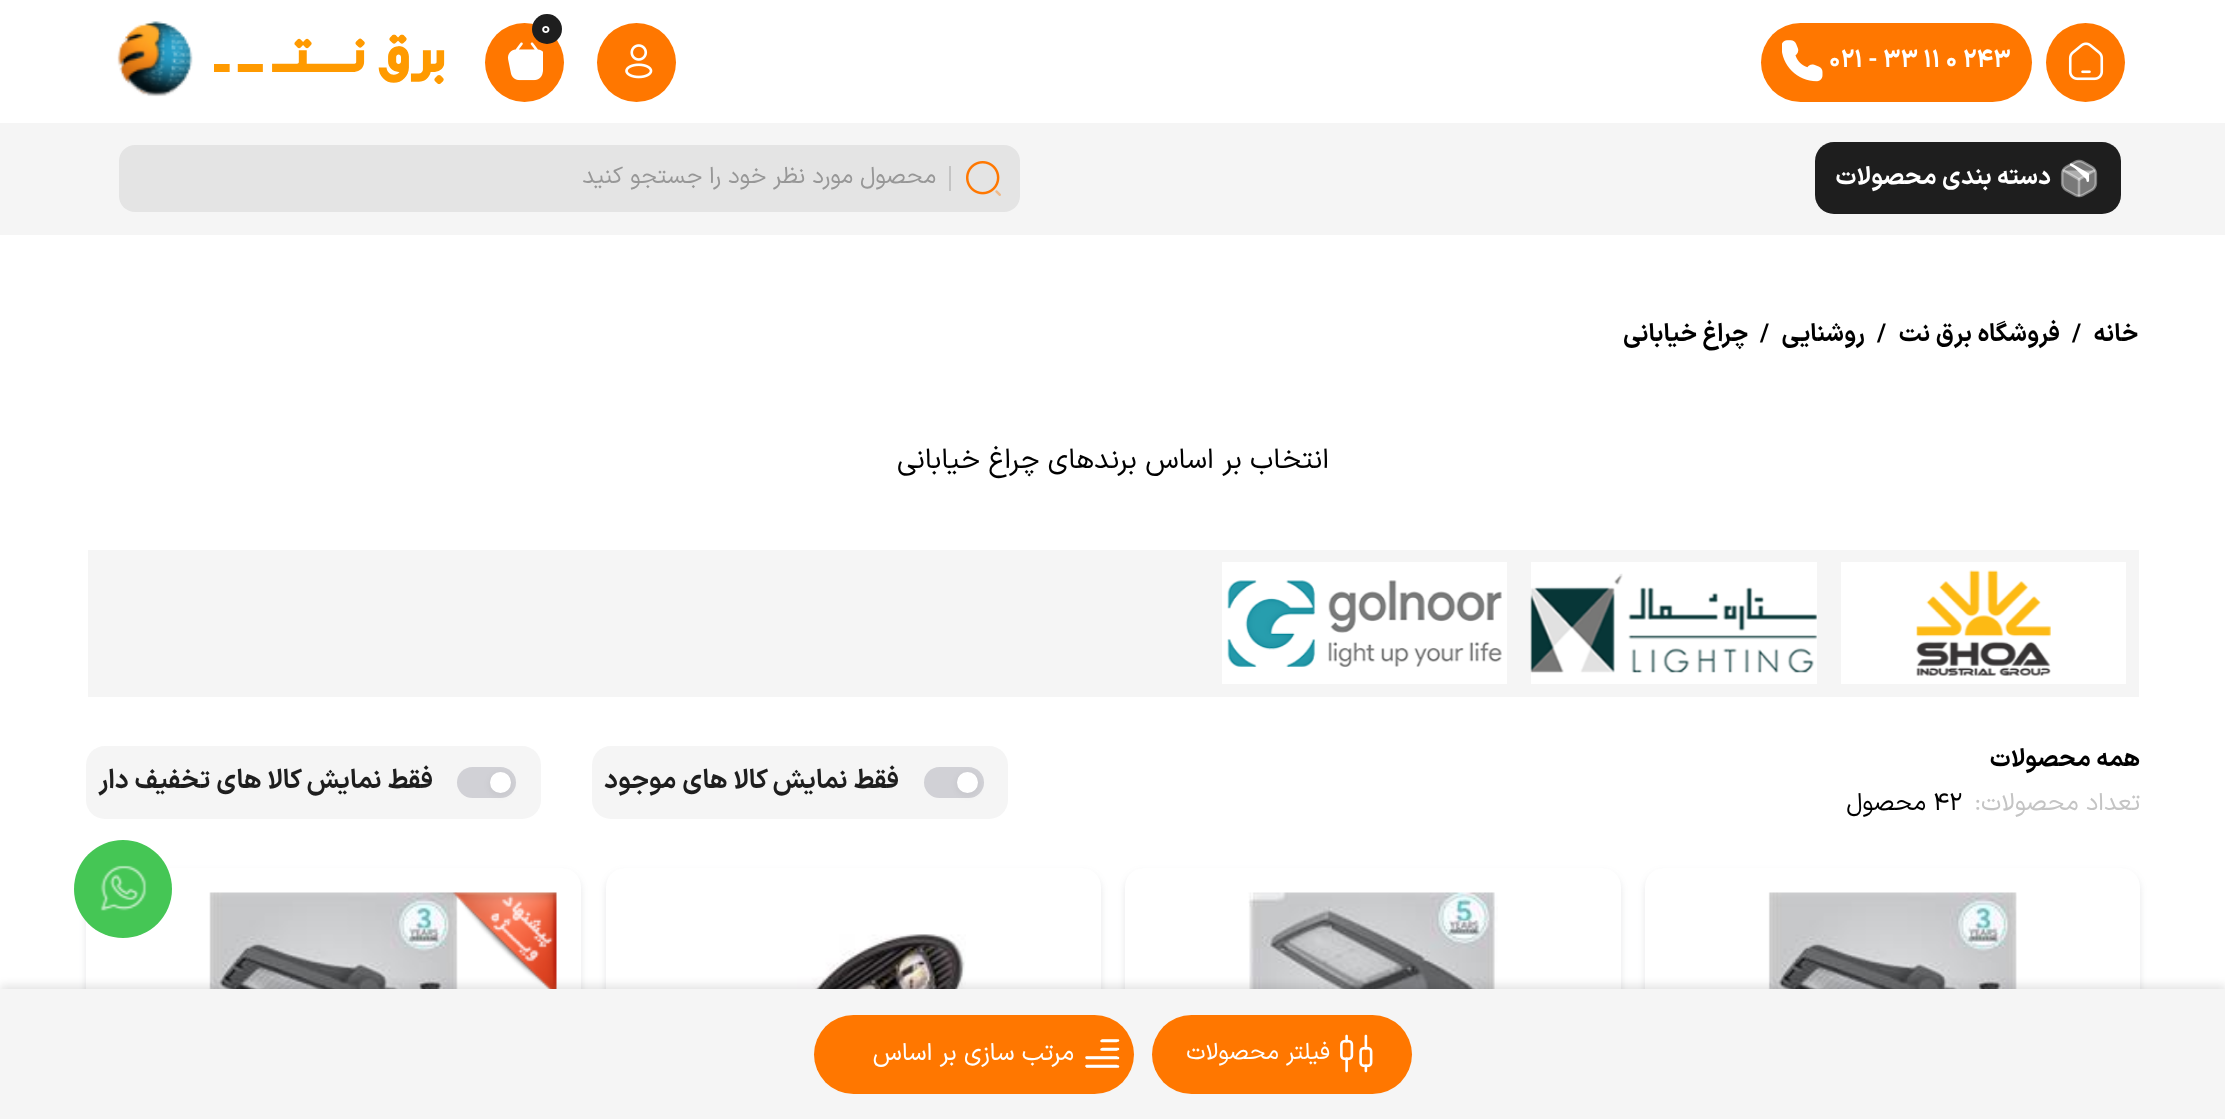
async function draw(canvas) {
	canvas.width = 2225;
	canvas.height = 1119;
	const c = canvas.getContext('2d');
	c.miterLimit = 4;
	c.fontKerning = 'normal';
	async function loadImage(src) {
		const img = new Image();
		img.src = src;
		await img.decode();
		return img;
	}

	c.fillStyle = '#fff';
	c.fillRect(0, 0, 2225, 1119);
	c.fillStyle = '#f70';
	c.beginPath();
	c.arc(636.5, 62.5, 39.5, 0, 2 * Math.PI);
	c.fill();
	c.drawImage(await loadImage('img1.png'), 625, 44, 28, 35);
	c.beginPath();
	c.arc(524.5, 62.5, 39.5, 0, 2 * Math.PI);
	c.fill();
	c.drawImage(await loadImage('img2.png'), 507, 42, 36, 39);
	c.fillStyle = '#1e1e1e';
	c.beginPath();
	c.arc(547, 29, 15, 0, 2 * Math.PI);
	c.fill();
	c.font = '22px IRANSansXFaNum';
	c.fillStyle = '#fff';
	c.fillText('0', 541, 34);
	c.drawImage(await loadImage('img3.png'), 117, 21, 328, 76);
	c.fillStyle = '#f70';
	c.beginPath();
	c.arc(2085.5, 62.5, 39.5, 0, 2 * Math.PI);
	c.fill();
	c.drawImage(await loadImage('img4.png'), 2068, 42, 36, 39);
	c.beginPath();
	c.roundRect(1761, 23, 271, 79, 39.5);
	c.fill();
	c.font = 'bold 24.5px IRANSansXFaNum';
	c.fillStyle = '#fff';
	c.fillText('021 - 33 11 0 243', 1829, 67);
	c.drawImage(await loadImage('img5.png'), 1782, 40, 41, 42);
	c.fillStyle = '#f5f5f5';
	c.fillRect(0, 123, 2225, 112);
	c.fillStyle = '#1e1e1e';
	c.beginPath();
	c.roundRect(1815, 142, 306, 72, 19);
	c.fill();
	c.drawImage(await loadImage('img6.png'), 2060, 159, 38, 39);
	c.direction = 'rtl';
	c.fillStyle = '#fff';
	c.fillText('دسته بندی محصولات', 2051, 184);
	c.fillStyle = '#e4e4e4';
	c.beginPath();
	c.roundRect(119, 145, 901, 67, 16);
	c.fill();
	c.drawImage(await loadImage('img7.png'), 966, 161, 35, 35);
	c.fillStyle = '#c4c4c4';
	c.fillRect(949, 166, 2, 25);
	c.font = '23.3px IRANSansXFaNum';
	c.fillStyle = '#979797';
	c.fillText('محصول مورد نظر خود را جستجو کنید', 936, 183);
	c.font = 'bold 24.5px IRANSansXFaNum';
	c.fillStyle = '#000';
	c.fillText('خانه', 2138, 341);
	c.direction = 'ltr';
	c.fillText('/', 2072, 341);
	c.direction = 'rtl';
	c.fillText('فروشگاه برق نت', 2060, 341);
	c.direction = 'ltr';
	c.fillText('/', 1877, 341);
	c.direction = 'rtl';
	c.fillText('روشنایی', 1865, 341);
	c.direction = 'ltr';
	c.fillText('/', 1760, 341);
	c.direction = 'rtl';
	c.fillText('چراغ خیابانی', 1748, 341);
	c.font = '28.2px IRANSansXFaNum';
	c.fillText('انتخاب بر اساس برندهای چراغ خیابانی', 1329, 468);
	c.fillStyle = '#f5f5f5';
	c.fillRect(88, 550, 2051, 147);
	c.fillStyle = '#fff';
	c.fillRect(1841, 562, 285, 122);
	c.drawImage(await loadImage('img8.png'), 1916, 570, 135, 106);
	c.fillRect(1531, 562, 286, 122);
	c.drawImage(await loadImage('img9.png'), 1530, 573, 287, 100);
	c.fillRect(1222, 562, 285, 122);
	c.drawImage(await loadImage('img10.png'), 1227, 580, 275, 87);
	c.font = 'bold 24.5px IRANSansXFaNum';
	c.fillStyle = '#000';
	c.fillText('همه محصولات', 2140, 766);
	c.font = '24.5px IRANSansXFaNum';
	c.fillStyle = '#c4c4c4';
	c.fillText('تعداد محصولات:', 2140, 810);
	c.direction = 'ltr';
	c.fillStyle = '#000';
	c.fillText('42', 1933, 810);
	c.direction = 'rtl';
	c.fillText('محصول', 1926, 810);
	c.fillStyle = '#f5f5f5';
	c.beginPath();
	c.roundRect(592, 746, 416, 73, 19);
	c.fill();
	c.fillStyle = '#d1d1d6';
	c.beginPath();
	c.roundRect(924, 767, 60, 31, 15.5);
	c.fill();
	c.fillStyle = '#0000000f';
	c.filter = 'blur(3.5px)';
	c.beginPath();
	c.roundRect(957, 774, 21, 21, 10.5);
	c.fill();
	c.filter = 'none';
	c.fillStyle = '#fff';
	c.beginPath();
	c.arc(967.5, 782.5, 10.5, 0, 2 * Math.PI);
	c.fill();
	c.font = 'bold 26.25px IRANSansXFaNum';
	c.fillStyle = '#1e1e1e';
	c.fillText('فقط نمایش کالا های موجود', 899, 788);
	c.fillStyle = '#f5f5f5';
	c.beginPath();
	c.roundRect(86, 746, 455, 73, 19);
	c.fill();
	c.fillStyle = '#d1d1d6';
	c.beginPath();
	c.roundRect(457, 767, 59, 31, 15.5);
	c.fill();
	c.fillStyle = '#0000000f';
	c.filter = 'blur(3.5px)';
	c.beginPath();
	c.roundRect(490, 774, 21, 21, 10.5);
	c.fill();
	c.filter = 'none';
	c.fillStyle = '#fff';
	c.beginPath();
	c.arc(500.5, 782.5, 10.5, 0, 2 * Math.PI);
	c.fill();
	c.fillStyle = '#1e1e1e';
	c.fillText('فقط نمایش کالا های تخفیف دار', 433, 788);
	c.save();
	c.beginPath();
	c.moveTo(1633, 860);
	c.lineTo(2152, 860);
	c.lineTo(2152, 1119);
	c.lineTo(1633, 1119);
	c.closePath();
	c.moveTo(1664, 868);
	c.lineTo(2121, 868);
	c.bezierCurveTo(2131.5, 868, 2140, 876.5, 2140, 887);
	c.lineTo(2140, 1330);
	c.bezierCurveTo(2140, 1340.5, 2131.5, 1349, 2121, 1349);
	c.lineTo(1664, 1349);
	c.bezierCurveTo(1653.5, 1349, 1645, 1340.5, 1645, 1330);
	c.lineTo(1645, 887);
	c.bezierCurveTo(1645, 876.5, 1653.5, 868, 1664, 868);
	c.closePath();
	c.clip('evenodd');
	c.fillStyle = '#60617029';
	c.filter = 'blur(3.5px)';
	c.beginPath();
	c.roundRect(1645, 872, 495, 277, 19);
	c.fill();
	c.filter = 'none';
	c.restore();
	c.drawImage(await loadImage('img11.png'), 1768, 892, 249, 97);
	c.save();
	c.beginPath();
	c.moveTo(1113, 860);
	c.lineTo(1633, 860);
	c.lineTo(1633, 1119);
	c.lineTo(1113, 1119);
	c.closePath();
	c.moveTo(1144, 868);
	c.lineTo(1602, 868);
	c.bezierCurveTo(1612.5, 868, 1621, 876.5, 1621, 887);
	c.lineTo(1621, 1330);
	c.bezierCurveTo(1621, 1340.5, 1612.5, 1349, 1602, 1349);
	c.lineTo(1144, 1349);
	c.bezierCurveTo(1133.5, 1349, 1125, 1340.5, 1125, 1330);
	c.lineTo(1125, 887);
	c.bezierCurveTo(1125, 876.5, 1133.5, 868, 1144, 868);
	c.closePath();
	c.clip('evenodd');
	c.fillStyle = '#60617029';
	c.filter = 'blur(3.5px)';
	c.beginPath();
	c.roundRect(1125, 872, 496, 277, 19);
	c.fill();
	c.filter = 'none';
	c.restore();
	c.drawImage(await loadImage('img12.png'), 1248, 892, 250, 97);
	c.save();
	c.beginPath();
	c.moveTo(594, 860);
	c.lineTo(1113, 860);
	c.lineTo(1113, 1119);
	c.lineTo(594, 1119);
	c.closePath();
	c.moveTo(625, 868);
	c.lineTo(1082, 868);
	c.bezierCurveTo(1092.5, 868, 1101, 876.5, 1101, 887);
	c.lineTo(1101, 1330);
	c.bezierCurveTo(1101, 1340.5, 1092.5, 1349, 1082, 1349);
	c.lineTo(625, 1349);
	c.bezierCurveTo(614.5, 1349, 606, 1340.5, 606, 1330);
	c.lineTo(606, 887);
	c.bezierCurveTo(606, 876.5, 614.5, 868, 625, 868);
	c.closePath();
	c.clip('evenodd');
	c.fillStyle = '#60617029';
	c.filter = 'blur(3.5px)';
	c.beginPath();
	c.roundRect(606, 872, 495, 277, 19);
	c.fill();
	c.filter = 'none';
	c.restore();
	c.drawImage(await loadImage('img13.png'), 741, 934, 225, 55);
	c.save();
	c.beginPath();
	c.moveTo(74, 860);
	c.lineTo(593, 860);
	c.lineTo(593, 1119);
	c.lineTo(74, 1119);
	c.closePath();
	c.moveTo(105, 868);
	c.lineTo(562, 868);
	c.bezierCurveTo(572.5, 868, 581, 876.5, 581, 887);
	c.lineTo(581, 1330);
	c.bezierCurveTo(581, 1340.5, 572.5, 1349, 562, 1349);
	c.lineTo(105, 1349);
	c.bezierCurveTo(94.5, 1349, 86, 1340.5, 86, 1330);
	c.lineTo(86, 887);
	c.bezierCurveTo(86, 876.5, 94.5, 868, 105, 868);
	c.closePath();
	c.clip('evenodd');
	c.fillStyle = '#60617029';
	c.filter = 'blur(3.5px)';
	c.beginPath();
	c.roundRect(86, 872, 495, 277, 19);
	c.fill();
	c.filter = 'none';
	c.restore();
	c.drawImage(await loadImage('img15.png'), 208, 892, 250, 97);
	c.drawImage(await loadImage('img14.png'), 423, 892, 134, 97);
	c.fillStyle = '#0000001a';
	c.filter = 'blur(4.5px)';
	c.beginPath();
	c.rect(0, 985, 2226, 132);
	c.fill();
	c.filter = 'none';
	c.fillStyle = '#f5f5f5';
	c.fillRect(0, 989, 2225, 130);
	c.fillStyle = '#f70';
	c.beginPath();
	c.roundRect(1152, 1015, 260, 79, 39.5);
	c.fill();
	c.drawImage(await loadImage('img16.png'), 1340, 1034, 33, 39);
	c.font = '23.3px IRANSansXFaNum';
	c.fillStyle = '#fff';
	c.fillText('فیلتر محصولات', 1330, 1059);
	c.fillStyle = '#f70';
	c.beginPath();
	c.roundRect(814, 1015, 320, 79, 39.5);
	c.fill();
	c.beginPath();
	c.moveTo(1102.5, 1040.5);
	c.lineTo(1118, 1040.5);
	c.moveTo(1102.5, 1049);
	c.lineTo(1118, 1049);
	c.moveTo(1087, 1058);
	c.lineTo(1118, 1058);
	c.moveTo(1087, 1066.5);
	c.lineTo(1118, 1066.5);
	c.strokeStyle = '#fff';
	c.lineWidth = 2.6;
	c.lineCap = 'round';
	c.lineJoin = 'round';
	c.stroke();
	c.beginPath();
	c.moveTo(1101.5, 1041);
	c.lineTo(1116.5, 1041);
	c.moveTo(1101.5, 1049.5);
	c.lineTo(1116.5, 1049.5);
	c.moveTo(1086.5, 1057.5);
	c.lineTo(1116.5, 1057.5);
	c.moveTo(1086.5, 1066);
	c.lineTo(1116.5, 1066);
	c.lineWidth = 2.5;
	c.stroke();
	c.font = '24.5px IRANSansXFaNum';
	c.fillStyle = '#fff';
	c.fillText('مرتب سازی بر اساس', 1074, 1060);
	c.fillStyle = '#45c655';
	c.beginPath();
	c.arc(123, 889, 49, 0, 2 * Math.PI);
	c.fill();
	c.drawImage(await loadImage('img17.png'), 100, 865, 47, 46);
}

draw(document.querySelector('canvas'));
